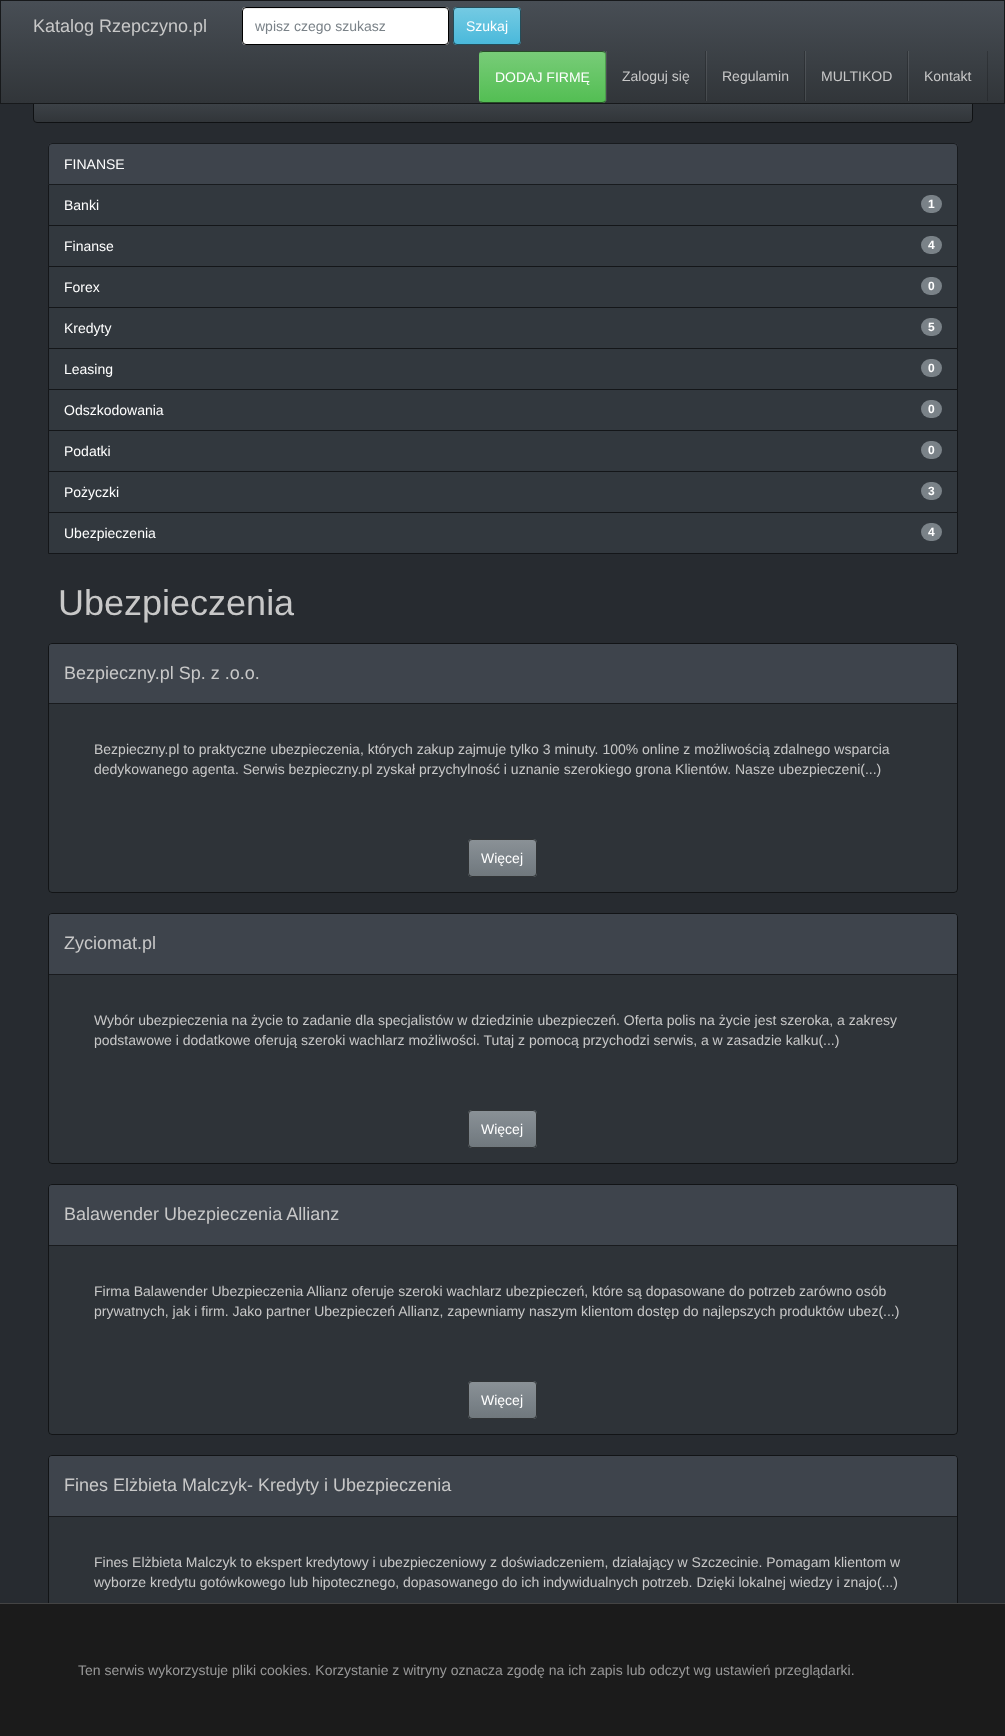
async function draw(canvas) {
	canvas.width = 1005;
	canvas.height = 1736;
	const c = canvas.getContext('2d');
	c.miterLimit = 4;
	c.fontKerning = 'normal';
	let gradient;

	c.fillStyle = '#272b30';
	c.fillRect(0, 0, 1005, 1736);
	gradient = c.createLinearGradient(503, 86, 503, 122);
	gradient.addColorStop(0, '#484e55');
	gradient.addColorStop(0.6, '#3a3f44');
	gradient.addColorStop(1, '#313539');
	c.fillStyle = gradient;
	c.fillRect(34, 104, 938, 18);
	c.beginPath();
	c.roundRect(33.5, 85.5, 939, 37, 3.5);
	c.strokeStyle = '#00000099';
	c.stroke();
	gradient = c.createLinearGradient(503, 1, 503, 103);
	gradient.addColorStop(0, '#484e55');
	gradient.addColorStop(0.6, '#3a3f44');
	gradient.addColorStop(1, '#313539');
	c.fillStyle = gradient;
	c.fillRect(1, 1, 1003, 102);
	gradient = c.createLinearGradient(503, 1, 503, 103);
	gradient.addColorStop(0, '#3a3e44');
	gradient.addColorStop(0.6, '#2e3236');
	gradient.addColorStop(1, '#272a2e');
	c.fillStyle = gradient;
	c.fillRect(987, 51, 1, 50);
	c.strokeStyle = '#17191b';
	c.strokeRect(0.5, 0.5, 1004, 103);
	c.font = '18px Liberation Sans';
	c.fillStyle = '#c8c8c8';
	c.fillText('Katalog Rzepczyno.pl', 33, 32);
	c.fillStyle = '#fff';
	c.beginPath();
	c.roundRect(242, 7, 207, 38, 4);
	c.fill();
	c.fillStyle = '#ececec';
	c.beginPath();
	c.moveTo(246, 9);
	c.lineTo(445, 9);
	c.bezierCurveTo(447, 9, 448, 10, 448, 12);
	c.bezierCurveTo(448, 10, 447, 8, 445, 8);
	c.lineTo(246, 8);
	c.bezierCurveTo(244, 8, 243, 10, 243, 12);
	c.bezierCurveTo(243, 10, 244, 9, 246, 9);
	c.closePath();
	c.fill();
	c.beginPath();
	c.roundRect(242.5, 7.5, 206, 37, 3.5);
	c.strokeStyle = '#000';
	c.stroke();
	c.font = '14px Liberation Sans';
	c.fillStyle = '#7a8288';
	c.fillText('wpisz czego szukasz', 255, 31);
	c.fillStyle = '#5bc0de';
	c.beginPath();
	c.roundRect(453, 7, 68, 38, 4);
	c.fill();
	c.save();
	c.beginPath();
	c.roundRect(453, 7, 68, 38, 4);
	c.clip();
	gradient = c.createLinearGradient(487, 8, 487, 44);
	gradient.addColorStop(0, '#74cae3');
	gradient.addColorStop(0.6, '#5bc0de');
	gradient.addColorStop(1, '#4ab9db');
	c.fillStyle = gradient;
	c.fillRect(454, 8, 66, 36);
	c.restore();
	c.beginPath();
	c.roundRect(453.5, 7.5, 67, 37, 3.5);
	c.strokeStyle = '#00000099';
	c.stroke();
	c.fillStyle = '#fff';
	c.fillText('Szukaj', 466, 31);
	c.fillStyle = '#62c462';
	c.beginPath();
	c.roundRect(479, 51, 127, 52, 4);
	c.fill();
	c.save();
	c.beginPath();
	c.roundRect(479, 51, 127, 52, 4);
	c.clip();
	gradient = c.createLinearGradient(543, 52, 543, 102);
	gradient.addColorStop(0, '#78cc78');
	gradient.addColorStop(0.6, '#62c462');
	gradient.addColorStop(1, '#53be53');
	c.fillStyle = gradient;
	c.fillRect(480, 52, 125, 50);
	c.restore();
	c.beginPath();
	c.moveTo(480.5, 52.5);
	c.bezierCurveTo(481, 52, 482, 51.5, 483, 51.5);
	c.lineTo(602, 51.5);
	c.bezierCurveTo(603, 51.5, 604, 52, 604.5, 52.5);
	c.stroke();
	c.beginPath();
	c.moveTo(604.5, 52.5);
	c.bezierCurveTo(605, 53, 605.5, 54, 605.5, 55);
	c.lineTo(605.5, 99);
	c.bezierCurveTo(605.5, 100, 605, 101, 604.5, 101.5);
	c.strokeStyle = '#00000033';
	c.stroke();
	c.beginPath();
	c.moveTo(604.5, 101.5);
	c.bezierCurveTo(604, 102, 603, 102.5, 602, 102.5);
	c.lineTo(483, 102.5);
	c.bezierCurveTo(482, 102.5, 481, 102, 480.5, 101.5);
	c.strokeStyle = '#00000099';
	c.stroke();
	c.beginPath();
	c.moveTo(480.5, 101.5);
	c.bezierCurveTo(480, 101, 479.5, 100, 479.5, 99);
	c.lineTo(479.5, 55);
	c.bezierCurveTo(479.5, 54, 480, 53, 480.5, 52.5);
	c.strokeStyle = '#ffffff1a';
	c.stroke();
	c.fillStyle = '#fff';
	c.fillText('DODAJ FIRMĘ', 495, 82);
	c.fillStyle = '#00000033';
	c.fillRect(705, 51, 1, 50);
	c.fillStyle = '#ffffff1a';
	c.fillRect(606, 51, 1, 50);
	c.fillStyle = '#c8c8c8';
	c.fillText('Zaloguj się', 622, 81);
	c.fillStyle = '#00000033';
	c.fillRect(804, 51, 1, 50);
	c.fillStyle = '#ffffff1a';
	c.fillRect(706, 51, 1, 50);
	c.fillStyle = '#c8c8c8';
	c.fillText('Regulamin', 722, 81);
	c.fillStyle = '#00000033';
	c.fillRect(907, 51, 1, 50);
	c.fillStyle = '#ffffff1a';
	c.fillRect(805, 51, 1, 50);
	c.fillStyle = '#c8c8c8';
	c.fillText('MULTIKOD', 821, 81);
	c.fillStyle = '#ffffff1a';
	c.fillRect(908, 51, 1, 50);
	c.fillStyle = '#c8c8c8';
	c.fillText('Kontakt', 924, 81);
	c.fillStyle = '#32383e';
	c.beginPath();
	c.rect(48.5, 184.5, 909, 41);
	c.fill();
	c.strokeStyle = '#141619';
	c.stroke();
	c.fillStyle = '#3e444c';
	c.beginPath();
	c.roundRect(48, 143, 910, 42, [4, 4, 0, 0]);
	c.fill();
	c.beginPath();
	c.roundRect(48.5, 143.5, 909, 41, [3.5, 3.5, 0, 0]);
	c.strokeStyle = '#00000099';
	c.stroke();
	c.fillStyle = '#fff';
	c.fillText('FINANSE', 64, 169);
	c.fillText('Banki', 64, 210);
	c.fillStyle = '#7a8288';
	c.beginPath();
	c.roundRect(921, 195, 21, 18, 9);
	c.fill();
	c.font = 'bold 12px Liberation Sans';
	c.fillStyle = '#fff';
	c.fillText('1', 928, 208);
	c.fillStyle = '#32383e';
	c.beginPath();
	c.rect(48.5, 225.5, 909, 41);
	c.fill();
	c.strokeStyle = '#141619';
	c.stroke();
	c.font = '14px Liberation Sans';
	c.fillStyle = '#fff';
	c.fillText('Finanse', 64, 251);
	c.fillStyle = '#7a8288';
	c.beginPath();
	c.roundRect(921, 236, 21, 18, 9);
	c.fill();
	c.font = 'bold 12px Liberation Sans';
	c.fillStyle = '#fff';
	c.fillText('4', 928, 249);
	c.fillStyle = '#32383e';
	c.beginPath();
	c.rect(48.5, 266.5, 909, 41);
	c.fill();
	c.stroke();
	c.font = '14px Liberation Sans';
	c.fillStyle = '#fff';
	c.fillText('Forex', 64, 292);
	c.fillStyle = '#7a8288';
	c.beginPath();
	c.roundRect(921, 277, 21, 18, 9);
	c.fill();
	c.font = 'bold 12px Liberation Sans';
	c.fillStyle = '#fff';
	c.fillText('0', 928, 290);
	c.fillStyle = '#32383e';
	c.beginPath();
	c.rect(48.5, 307.5, 909, 41);
	c.fill();
	c.stroke();
	c.font = '14px Liberation Sans';
	c.fillStyle = '#fff';
	c.fillText('Kredyty', 64, 333);
	c.fillStyle = '#7a8288';
	c.beginPath();
	c.roundRect(921, 318, 21, 18, 9);
	c.fill();
	c.font = 'bold 12px Liberation Sans';
	c.fillStyle = '#fff';
	c.fillText('5', 928, 331);
	c.fillStyle = '#32383e';
	c.beginPath();
	c.rect(48.5, 348.5, 909, 41);
	c.fill();
	c.stroke();
	c.font = '14px Liberation Sans';
	c.fillStyle = '#fff';
	c.fillText('Leasing', 64, 374);
	c.fillStyle = '#7a8288';
	c.beginPath();
	c.roundRect(921, 359, 21, 18, 9);
	c.fill();
	c.font = 'bold 12px Liberation Sans';
	c.fillStyle = '#fff';
	c.fillText('0', 928, 372);
	c.fillStyle = '#32383e';
	c.beginPath();
	c.rect(48.5, 389.5, 909, 41);
	c.fill();
	c.stroke();
	c.font = '14px Liberation Sans';
	c.fillStyle = '#fff';
	c.fillText('Odszkodowania', 64, 415);
	c.fillStyle = '#7a8288';
	c.beginPath();
	c.roundRect(921, 400, 21, 18, 9);
	c.fill();
	c.font = 'bold 12px Liberation Sans';
	c.fillStyle = '#fff';
	c.fillText('0', 928, 413);
	c.fillStyle = '#32383e';
	c.beginPath();
	c.rect(48.5, 430.5, 909, 41);
	c.fill();
	c.stroke();
	c.font = '14px Liberation Sans';
	c.fillStyle = '#fff';
	c.fillText('Podatki', 64, 456);
	c.fillStyle = '#7a8288';
	c.beginPath();
	c.roundRect(921, 441, 21, 18, 9);
	c.fill();
	c.font = 'bold 12px Liberation Sans';
	c.fillStyle = '#fff';
	c.fillText('0', 928, 454);
	c.fillStyle = '#32383e';
	c.beginPath();
	c.rect(48.5, 471.5, 909, 41);
	c.fill();
	c.stroke();
	c.font = '14px Liberation Sans';
	c.fillStyle = '#fff';
	c.fillText('Pożyczki', 64, 497);
	c.fillStyle = '#7a8288';
	c.beginPath();
	c.roundRect(921, 482, 21, 18, 9);
	c.fill();
	c.font = 'bold 12px Liberation Sans';
	c.fillStyle = '#fff';
	c.fillText('3', 928, 495);
	c.fillStyle = '#32383e';
	c.beginPath();
	c.rect(48.5, 512.5, 909, 41);
	c.fill();
	c.stroke();
	c.font = '14px Liberation Sans';
	c.fillStyle = '#fff';
	c.fillText('Ubezpieczenia', 64, 538);
	c.fillStyle = '#7a8288';
	c.beginPath();
	c.roundRect(921, 523, 21, 18, 9);
	c.fill();
	c.font = 'bold 12px Liberation Sans';
	c.fillStyle = '#fff';
	c.fillText('4', 928, 536);
	c.font = '36px Liberation Sans';
	c.fillStyle = '#c8c8c8';
	c.fillText('Ubezpieczenia', 58, 615);
	c.fillStyle = '#2e3338';
	c.beginPath();
	c.roundRect(48, 643, 910, 250, 4);
	c.fill();
	c.beginPath();
	c.roundRect(48.5, 643.5, 909, 249, 3.5);
	c.strokeStyle = '#00000099';
	c.stroke();
	c.fillStyle = '#3e444c';
	c.beginPath();
	c.roundRect(49, 644, 908, 60, [3, 3, 0, 0]);
	c.fill();
	c.fillStyle = '#191b1e';
	c.fillRect(49, 703, 908, 1);
	c.font = '18px Liberation Sans';
	c.fillStyle = '#c8c8c8';
	c.fillText('Bezpieczny.pl Sp. z .o.o.', 64, 679);
	c.font = '14px Liberation Sans';
	c.fillText('Bezpieczny.pl to praktyczne ubezpieczenia, których zakup zajmuje tylko 3 minuty. 100% online z możliwością zdalnego wsparcia', 94, 754);
	c.fillText('dedykowanego agenta. Serwis bezpieczny.pl zyskał przychylność i uznanie szerokiego grona Klientów. Nasze ubezpieczeni(...)', 94, 774);
	c.fillStyle = '#7a8288';
	c.beginPath();
	c.roundRect(468, 839, 69, 38, 4);
	c.fill();
	c.save();
	c.beginPath();
	c.roundRect(468, 839, 69, 38, 4);
	c.clip();
	gradient = c.createLinearGradient(503, 840, 503, 876);
	gradient.addColorStop(0, '#8a9196');
	gradient.addColorStop(0.6, '#7a8288');
	gradient.addColorStop(1, '#70787d');
	c.fillStyle = gradient;
	c.fillRect(469, 840, 67, 36);
	c.restore();
	c.beginPath();
	c.roundRect(468.5, 839.5, 68, 37, 3.5);
	c.stroke();
	c.fillStyle = '#fff';
	c.fillText('Więcej', 481, 863);
	c.fillStyle = '#2e3338';
	c.beginPath();
	c.roundRect(48, 913, 910, 251, 4);
	c.fill();
	c.beginPath();
	c.roundRect(48.5, 913.5, 909, 250, 3.5);
	c.stroke();
	c.fillStyle = '#3e444c';
	c.beginPath();
	c.roundRect(49, 914, 908, 61, [3, 3, 0, 0]);
	c.fill();
	c.fillStyle = '#191b1e';
	c.fillRect(49, 974, 908, 1);
	c.font = '18px Liberation Sans';
	c.fillStyle = '#c8c8c8';
	c.fillText('Zyciomat.pl', 64, 949);
	c.font = '14px Liberation Sans';
	c.fillText('Wybór ubezpieczenia na życie to zadanie dla specjalistów w dziedzinie ubezpieczeń. Oferta polis na życie jest szeroka, a zakresy', 94, 1025);
	c.fillText('podstawowe i dodatkowe oferują szeroki wachlarz możliwości. Tutaj z pomocą przychodzi serwis, a w zasadzie kalku(...)', 94, 1045);
	c.fillStyle = '#7a8288';
	c.beginPath();
	c.roundRect(468, 1110, 69, 38, 4);
	c.fill();
	c.save();
	c.beginPath();
	c.roundRect(468, 1110, 69, 38, 4);
	c.clip();
	gradient = c.createLinearGradient(503, 1111, 503, 1147);
	gradient.addColorStop(0, '#8a9196');
	gradient.addColorStop(0.6, '#7a8288');
	gradient.addColorStop(1, '#70787d');
	c.fillStyle = gradient;
	c.fillRect(469, 1111, 67, 36);
	c.restore();
	c.beginPath();
	c.roundRect(468.5, 1110.5, 68, 37, 3.5);
	c.stroke();
	c.fillStyle = '#fff';
	c.fillText('Więcej', 481, 1134);
	c.fillStyle = '#2e3338';
	c.beginPath();
	c.roundRect(48, 1184, 910, 251, 4);
	c.fill();
	c.beginPath();
	c.roundRect(48.5, 1184.5, 909, 250, 3.5);
	c.stroke();
	c.fillStyle = '#3e444c';
	c.beginPath();
	c.roundRect(49, 1185, 908, 61, [3, 3, 0, 0]);
	c.fill();
	c.fillStyle = '#191b1e';
	c.fillRect(49, 1245, 908, 1);
	c.font = '18px Liberation Sans';
	c.fillStyle = '#c8c8c8';
	c.fillText('Balawender Ubezpieczenia Allianz', 64, 1220);
	c.font = '14px Liberation Sans';
	c.fillText('Firma Balawender Ubezpieczenia Allianz oferuje szeroki wachlarz ubezpieczeń, które są dopasowane do potrzeb zarówno osób', 94, 1296);
	c.fillText('prywatnych, jak i firm. Jako partner Ubezpieczeń Allianz, zapewniamy naszym klientom dostęp do najlepszych produktów ubez(...)', 94, 1316);
	c.fillStyle = '#7a8288';
	c.beginPath();
	c.roundRect(468, 1381, 69, 38, 4);
	c.fill();
	c.save();
	c.beginPath();
	c.roundRect(468, 1381, 69, 38, 4);
	c.clip();
	gradient = c.createLinearGradient(503, 1382, 503, 1418);
	gradient.addColorStop(0, '#8a9196');
	gradient.addColorStop(0.6, '#7a8288');
	gradient.addColorStop(1, '#70787d');
	c.fillStyle = gradient;
	c.fillRect(469, 1382, 67, 36);
	c.restore();
	c.beginPath();
	c.roundRect(468.5, 1381.5, 68, 37, 3.5);
	c.stroke();
	c.fillStyle = '#fff';
	c.fillText('Więcej', 481, 1405);
	c.fillStyle = '#2e3338';
	c.beginPath();
	c.roundRect(48, 1455, 910, 251, 4);
	c.fill();
	c.beginPath();
	c.roundRect(48.5, 1455.5, 909, 250, 3.5);
	c.stroke();
	c.fillStyle = '#3e444c';
	c.beginPath();
	c.roundRect(49, 1456, 908, 61, [3, 3, 0, 0]);
	c.fill();
	c.fillStyle = '#191b1e';
	c.fillRect(49, 1516, 908, 1);
	c.font = '18px Liberation Sans';
	c.fillStyle = '#c8c8c8';
	c.fillText('Fines Elżbieta Malczyk- Kredyty i Ubezpieczenia', 64, 1491);
	c.font = '14px Liberation Sans';
	c.fillText('Fines Elżbieta Malczyk to ekspert kredytowy i ubezpieczeniowy z doświadczeniem, działający w Szczecinie. Pomagam klientom w', 94, 1567);
	c.fillText('wyborze kredytu gotówkowego lub hipotecznego, dopasowanego do ich indywidualnych potrzeb. Dzięki lokalnej wiedzy i znajo(...)', 94, 1587);
	c.fillStyle = '#1b1b1b';
	c.fillRect(0, 1604, 1005, 132);
	c.fillStyle = '#444';
	c.fillRect(0, 1603, 1005, 1);
	c.fillStyle = '#999';
	c.fillText('Ten serwis wykorzystuje pliki cookies. Korzystanie z witryny oznacza zgodę na ich zapis lub odczyt wg ustawień przeglądarki.', 78, 1675);
}

draw(document.querySelector('canvas'));
